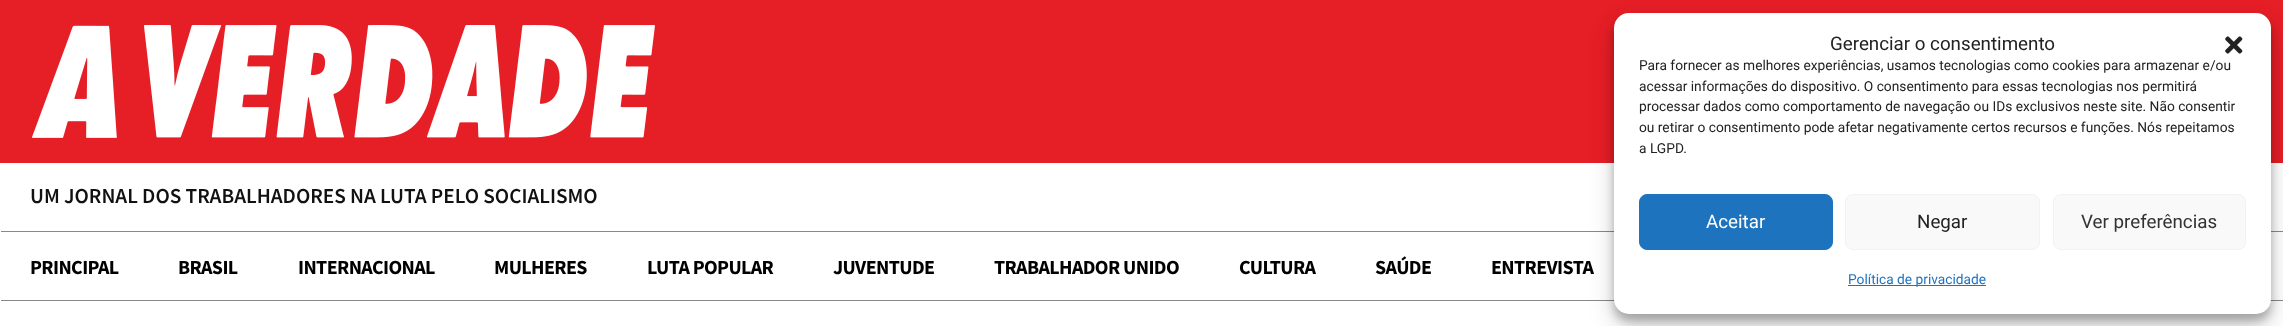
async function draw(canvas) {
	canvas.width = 2283;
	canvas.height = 326;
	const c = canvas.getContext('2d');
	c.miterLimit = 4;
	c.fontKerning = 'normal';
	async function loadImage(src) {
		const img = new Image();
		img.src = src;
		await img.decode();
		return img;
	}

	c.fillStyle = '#fff';
	c.fillRect(0, 0, 2283, 326);
	c.fillStyle = '#e61e26';
	c.fillRect(0, 0, 2283, 163);
	c.drawImage(await loadImage('img1.png'), 31, 25, 624, 113);
	c.font = '600 21.25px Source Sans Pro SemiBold';
	c.fillStyle = '#111';
	c.fillText('UM JORNAL DOS TRABALHADORES NA LUTA PELO SOCIALISMO', 30, 203);
	c.fillStyle = '#888';
	c.fillRect(1, 231, 2282, 1);
	c.letterSpacing = '-0.6px';
	c.font = 'bold 20px Source Sans Pro';
	c.fillStyle = '#000';
	for (const [text, x, y] of [
		['PRINCIPAL', 30, 274],
		['BRASIL', 178, 274],
		['INTERNACIONAL', 298, 274],
		['MULHERES', 494, 274],
		['LUTA POPULAR', 647, 274],
		['JUVENTUDE', 833, 274],
		['TRABALHADOR UNIDO', 994, 274],
		['CULTURA', 1239, 274],
		['SAÚDE', 1375, 274],
		['ENTREVISTA', 1491, 274],
	]) {
		c.fillText(text, x, y);
	}
	c.fillStyle = '#888';
	c.fillRect(1, 300, 2282, 1);
	c.fillStyle = '#0000003b';
	c.filter = 'blur(4px)';
	c.beginPath();
	c.roundRect(1614, 20, 657, 301, 15);
	c.fill();
	c.filter = 'none';
	c.fillStyle = '#00000030';
	c.filter = 'blur(12.5px)';
	c.beginPath();
	c.roundRect(1614, 25, 657, 301, 15);
	c.fill();
	c.filter = 'none';
	c.fillStyle = '#fff';
	c.beginPath();
	c.roundRect(1614, 13, 657, 301, 15);
	c.fill();
	c.letterSpacing = '0px';
	c.font = '18.75px Roboto';
	c.fillStyle = '#222';
	c.fillText('Gerenciar o consentimento', 1830, 50);
	c.drawImage(await loadImage('img2.png'), 2225, 36, 18, 18);
	c.font = '13.75px Roboto';
	for (const [text, x, y] of [
		['Para fornecer as melhores experiências, usamos tecnologias como cookies para armazenar e/ou', 1639, 70],
		['acessar informações do dispositivo. O consentimento para essas tecnologias nos permitirá', 1639, 91],
		['processar dados como comportamento de navegação ou IDs exclusivos neste site. Não consentir', 1639, 111],
		['ou retirar o consentimento pode afetar negativamente certos recursos e funções. Nós repeitamos', 1639, 132],
		['a LGPD.', 1639, 153],
	]) {
		c.fillText(text, x, y);
	}
	c.fillStyle = '#1e73be';
	c.beginPath();
	c.roundRect(1639.5, 194.5, 193, 55, 7.5);
	c.fill();
	c.strokeStyle = '#1e73be';
	c.stroke();
	c.font = '18.75px Roboto';
	c.fillStyle = '#fff';
	c.fillText('Aceitar', 1706, 228);
	c.fillStyle = '#f9f9f9';
	c.beginPath();
	c.roundRect(1845.5, 194.5, 194, 55, 7.5);
	c.fill();
	c.strokeStyle = '#f2f2f2';
	c.stroke();
	c.fillStyle = '#222';
	c.fillText('Negar', 1917, 228);
	c.fillStyle = '#f9f9f9';
	c.beginPath();
	c.roundRect(2053.5, 194.5, 192, 55, 7.5);
	c.fill();
	c.stroke();
	c.fillStyle = '#333';
	c.fillText('Ver preferências', 2081, 228);
	c.fillStyle = '#1e73be';
	c.fillRect(1848, 285, 138, 1);
	c.font = '13.75px Roboto';
	c.fillText('Política de privacidade', 1848, 284);
}

draw(document.querySelector('canvas'));
